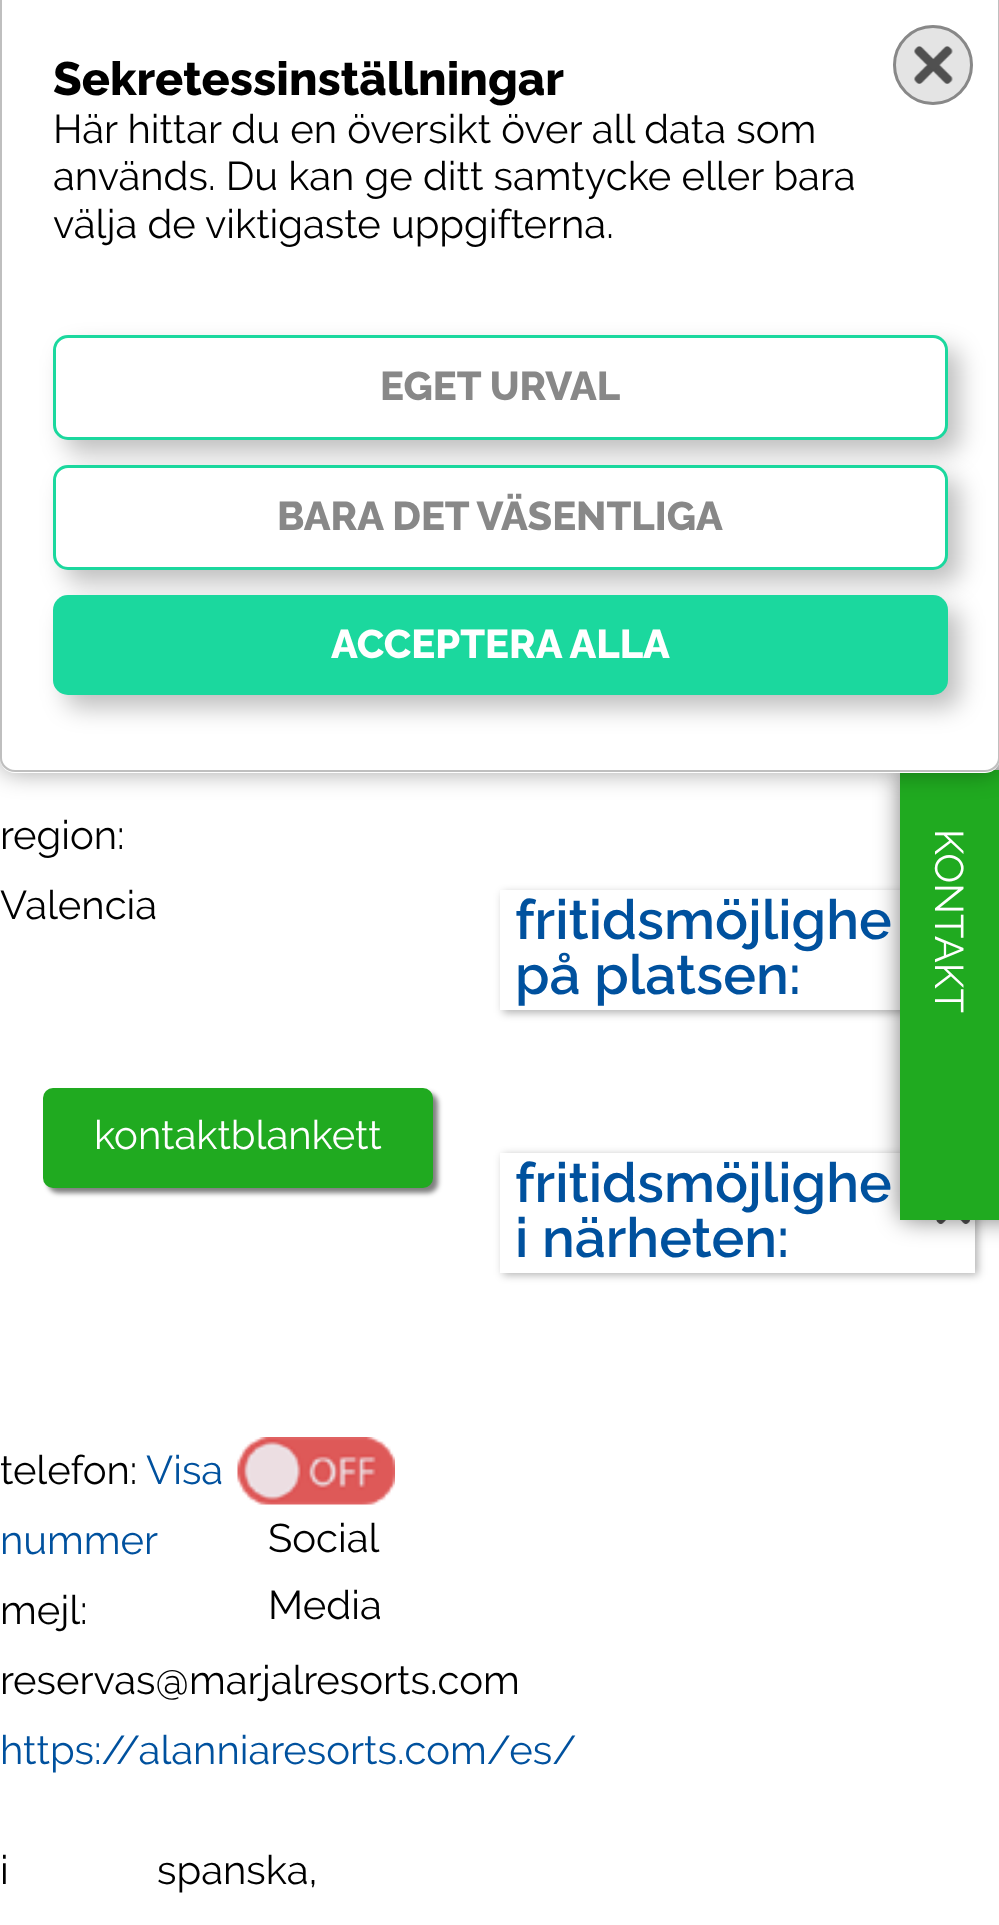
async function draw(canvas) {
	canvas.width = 999;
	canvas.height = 1925;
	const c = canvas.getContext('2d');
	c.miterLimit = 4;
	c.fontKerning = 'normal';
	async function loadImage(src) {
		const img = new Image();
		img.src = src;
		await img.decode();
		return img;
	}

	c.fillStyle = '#fff';
	c.fillRect(0, 0, 999, 1925);
	c.save();
	c.beginPath();
	c.moveTo(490, 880);
	c.lineTo(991, 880);
	c.lineTo(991, 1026);
	c.lineTo(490, 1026);
	c.closePath();
	c.moveTo(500, 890);
	c.lineTo(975, 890);
	c.lineTo(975, 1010);
	c.lineTo(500, 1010);
	c.closePath();
	c.clip('evenodd');
	c.fillStyle = '#0000004d';
	c.filter = 'blur(4px)';
	c.beginPath();
	c.rect(503, 893, 475, 120);
	c.fill();
	c.filter = 'none';
	c.restore();
	c.save();
	c.beginPath();
	c.moveTo(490, 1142);
	c.lineTo(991, 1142);
	c.lineTo(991, 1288);
	c.lineTo(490, 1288);
	c.closePath();
	c.moveTo(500, 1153);
	c.lineTo(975, 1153);
	c.lineTo(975, 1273);
	c.lineTo(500, 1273);
	c.closePath();
	c.clip('evenodd');
	c.fillStyle = '#0000004d';
	c.filter = 'blur(4px)';
	c.beginPath();
	c.rect(503, 1155, 475, 120);
	c.fill();
	c.filter = 'none';
	c.restore();
	c.drawImage(await loadImage('img3.png'), 936, 1220, 34, 4);
	c.fillStyle = '#00000080';
	c.filter = 'blur(12.5px)';
	c.beginPath();
	c.roundRect(900, 770, 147, 450, 10);
	c.fill();
	c.filter = 'none';
	c.fillStyle = '#20aa20';
	c.fillRect(900, 770, 99, 450);
	c.fillStyle = '#00000059';
	c.filter = 'blur(12.5px)';
	c.beginPath();
	c.roundRect(0, 0, 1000, 773, 15);
	c.fill();
	c.filter = 'none';
	c.fillStyle = '#fff';
	c.beginPath();
	c.moveTo(0, 0);
	c.lineTo(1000, 0);
	c.lineTo(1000, 758);
	c.bezierCurveTo(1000, 766.5, 993.5, 773, 985, 773);
	c.lineTo(15, 773);
	c.bezierCurveTo(6.5, 773, 0, 766.5, 0, 758);
	c.closePath();
	c.fill();
	c.fillStyle = '#00000040';
	c.beginPath();
	c.moveTo(0, 0);
	c.lineTo(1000, 0);
	c.lineTo(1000, 758);
	c.bezierCurveTo(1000, 766, 993, 772, 985, 772);
	c.lineTo(15, 772);
	c.bezierCurveTo(7, 772, 0, 766, 0, 758);
	c.closePath();
	c.moveTo(2, 0);
	c.lineTo(998, 0);
	c.lineTo(998, 758);
	c.bezierCurveTo(998, 764, 992, 770, 985, 770);
	c.lineTo(15, 770);
	c.bezierCurveTo(8, 770, 2, 764, 2, 758);
	c.closePath();
	c.fill('evenodd');
	c.font = '800 46.75px Raleway';
	c.fillStyle = '#000';
	c.fillText('Sekretessinställningar', 53, 95);
	c.font = '40px Raleway';
	for (const [text, x, y] of [
		['Här hittar du en översikt över all data som', 53, 143],
		['används. Du kan ge ditt samtycke eller bara', 53, 190],
		['välja de viktigaste uppgifterna.', 53, 238],
	]) {
		c.fillText(text, x, y);
	}
	c.fillStyle = '#00000040';
	c.filter = 'blur(12.5px)';
	c.beginPath();
	c.roundRect(65, 348, 895, 105, 15);
	c.fill();
	c.filter = 'none';
	c.fillStyle = '#fff';
	c.beginPath();
	c.roundRect(54.5, 336.5, 892, 102, 13.5);
	c.fill();
	c.strokeStyle = '#1bd89e';
	c.lineWidth = 3;
	c.stroke();
	c.font = '800 40px Raleway';
	c.fillStyle = '#888';
	c.fillText('EGET URVAL', 380, 400);
	c.fillStyle = '#00000040';
	c.filter = 'blur(12.5px)';
	c.beginPath();
	c.roundRect(65, 478, 895, 105, 15);
	c.fill();
	c.filter = 'none';
	c.fillStyle = '#fff';
	c.beginPath();
	c.roundRect(54.5, 466.5, 892, 102, 13.5);
	c.fill();
	c.stroke();
	c.fillStyle = '#888';
	c.fillText('BARA DET VÄSENTLIGA', 277, 530);
	c.fillStyle = '#00000040';
	c.filter = 'blur(12.5px)';
	c.beginPath();
	c.roundRect(65, 608, 895, 100, 15);
	c.fill();
	c.filter = 'none';
	c.fillStyle = '#1bd89e';
	c.beginPath();
	c.roundRect(53, 595, 895, 100, 15);
	c.fill();
	c.fillStyle = '#fff';
	c.fillText('ACCEPTERA ALLA', 331, 658);
	c.fillStyle = '#e4e4e4';
	c.beginPath();
	c.arc(933, 65, 40, 0, 2 * Math.PI);
	c.fill();
	c.drawImage(await loadImage('img1.png'), 914, 46, 39, 38);
	c.beginPath();
	c.arc(933, 65, 38.5, 0, 2 * Math.PI);
	c.strokeStyle = '#888';
	c.stroke();
	c.font = '40px Raleway';
	c.fillStyle = '#000';
	c.fillText('region:', 0, 849);
	c.fillText('Valencia', 0, 919);
	c.fillStyle = '#00000080';
	c.filter = 'blur(2.5px)';
	c.beginPath();
	c.roundRect(48, 1093, 390, 100, 10);
	c.fill();
	c.filter = 'none';
	c.fillStyle = '#20aa20';
	c.beginPath();
	c.roundRect(43, 1088, 390, 100, 10);
	c.fill();
	c.fillStyle = '#fff';
	c.fillText('kontaktblankett', 94, 1149);
	c.fillStyle = '#000';
	c.fillText('telefon:', 0, 1484);
	c.fillStyle = '#00519e';
	c.fillText('Visa', 146, 1484);
	c.fillText('nummer', 0, 1554);
	c.fillStyle = '#000';
	c.fillText('mejl:', 0, 1624);
	c.fillText('reservas@marjalresorts.com', 0, 1694);
	c.fillStyle = '#00519e';
	c.fillText('https://alanniaresorts.com/es/', 0, 1764);
	c.drawImage(await loadImage('img2.png'), 237, 1437, 158, 68);
	c.fillStyle = '#000';
	for (const [text, x, y] of [
		['Social', 268, 1552],
		['Media', 268, 1619],
		['i', 0, 1884],
		['spanska,', 157, 1884],
	]) {
		c.fillText(text, x, y);
	}
	c.font = '600 55px Raleway';
	c.fillStyle = '#00519e';
	for (const [text, x, y] of [
		['fritidsmöjlighe', 515, 939],
		['på platsen:', 515, 994],
		['fritidsmöjlighe', 515, 1202],
		['i närheten:', 515, 1257],
	]) {
		c.fillText(text, x, y);
	}
	c.font = '40px Raleway';
	c.fillStyle = '#fff';
	c.save();
	c.translate(935, 829);
	c.rotate(90 * Math.PI / 180);
	c.fillText('KONTAKT', 0, 0);
	c.restore();
}

draw(document.querySelector('canvas'));
